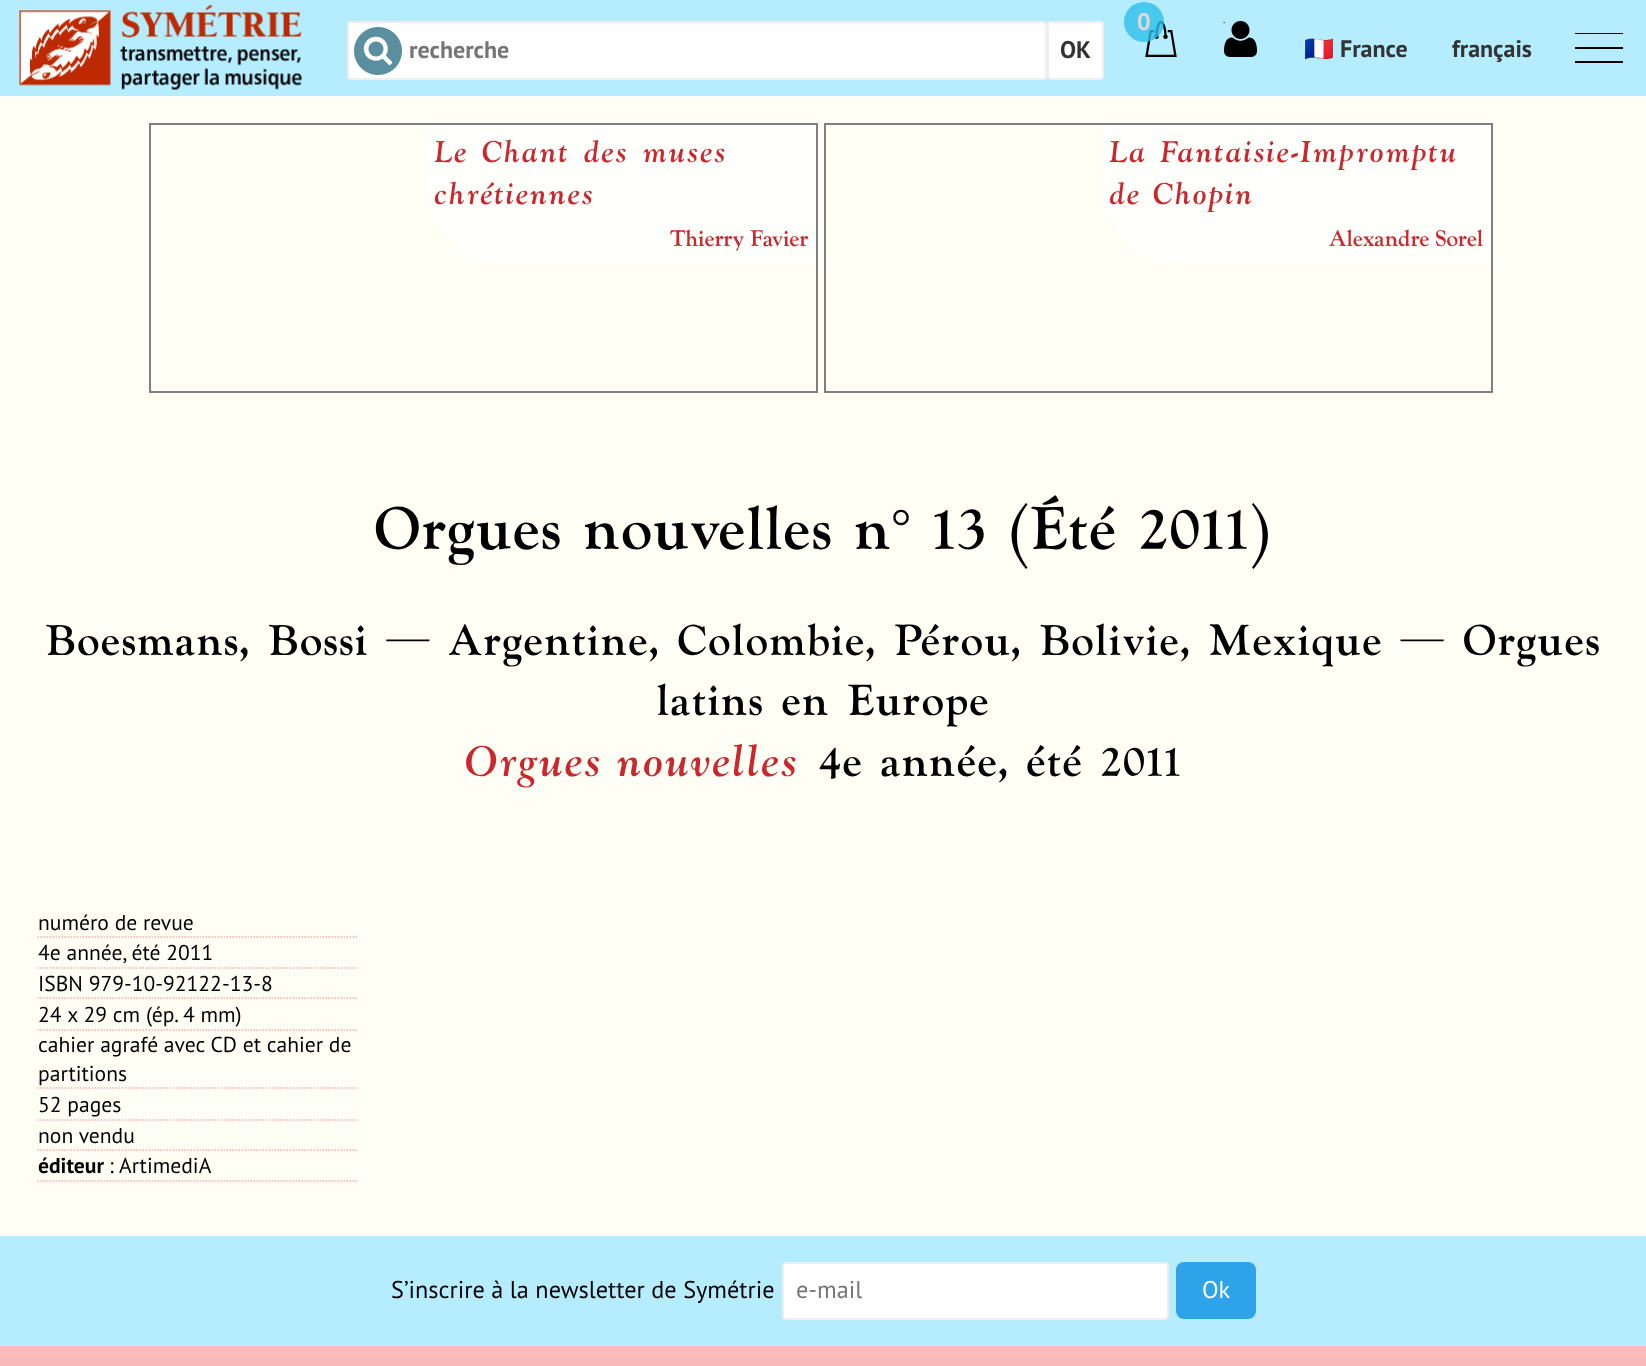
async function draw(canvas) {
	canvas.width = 1646;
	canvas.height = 1366;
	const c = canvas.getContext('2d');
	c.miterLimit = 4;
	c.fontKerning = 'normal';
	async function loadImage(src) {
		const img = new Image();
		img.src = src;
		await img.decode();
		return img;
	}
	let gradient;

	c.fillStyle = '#fffff5';
	c.fillRect(0, 0, 1646, 1366);
	c.fillStyle = '#b5edff';
	c.fillRect(0, 0, 1646, 96);
	c.fillStyle = '#fff';
	c.fillRect(0, 96, 1646, 2);
	c.drawImage(await loadImage('img1.png'), 19, 4, 283, 86);
	c.beginPath();
	c.roundRect(347, 21, 700, 59, 4);
	c.fill();
	c.drawImage(await loadImage('img2.png'), 354, 27, 48, 48);
	c.beginPath();
	c.roundRect(348, 22, 698, 57, 3);
	c.strokeStyle = '#eee';
	c.lineWidth = 2;
	c.stroke();
	c.font = 'bold 24px PT Sans';
	c.fillStyle = '#757575';
	c.fillText('recherche', 409, 58);
	c.fillStyle = '#fff';
	c.beginPath();
	c.roundRect(1048, 22, 55, 57, 3);
	c.fill();
	c.stroke();
	c.fillStyle = '#333';
	c.fillText('OK', 1060, 58);
	c.drawImage(await loadImage('img3.png'), 1145, 21, 32, 36);
	c.fillStyle = '#2ebfeacc';
	c.beginPath();
	c.arc(1144, 22, 20, 0, 2 * Math.PI);
	c.fill();
	c.fillStyle = '#e3d8d6';
	c.fillText('0', 1137, 30);
	c.drawImage(await loadImage('img4.png'), 1223, 21, 34, 36);
	c.font = 'bold 24px Noto Color Emoji';
	c.fillStyle = '#333';
	c.fillText('🇫🇷', 1304, 57);
	c.font = 'bold 24px PT Sans';
	c.fillText('France', 1340, 57);
	c.fillText('français', 1452, 57);
	c.fillStyle = '#000';
	c.beginPath();
	c.moveTo(1575, 33);
	c.lineTo(1575, 34);
	c.lineTo(1623, 34);
	c.lineTo(1623, 33);
	c.closePath();
	c.moveTo(1575, 47);
	c.lineTo(1575, 49);
	c.lineTo(1623, 49);
	c.lineTo(1623, 47);
	c.closePath();
	c.moveTo(1575, 61);
	c.lineTo(1575, 63);
	c.lineTo(1623, 63);
	c.lineTo(1623, 61);
	c.closePath();
	c.fill();
	c.strokeStyle = '#808080';
	c.strokeRect(150, 124, 667, 268);
	c.fillStyle = '#fffffc';
	c.beginPath();
	c.roundRect(426, 125, 390, 138, [0, 0, 0, 75]);
	c.fill();
	c.letterSpacing = '1.68px';
	c.wordSpacing = '4.75px';
	c.font = 'italic bold 30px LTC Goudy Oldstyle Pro';
	c.fillStyle = '#c9282e';
	c.fillText('Le Chant des muses', 434, 162);
	c.wordSpacing = '0px';
	c.fillText('chrétiennes', 434, 204);
	c.letterSpacing = '0px';
	c.font = 'bold 22.5px LTC Goudy Oldstyle Pro';
	c.fillText('Thierry Favier', 670, 246);
	c.strokeRect(825, 124, 667, 268);
	c.fillStyle = '#fffffc';
	c.beginPath();
	c.roundRect(1101, 125, 390, 138, [0, 0, 0, 75]);
	c.fill();
	c.letterSpacing = '1.68px';
	c.font = 'italic bold 30px LTC Goudy Oldstyle Pro';
	c.fillStyle = '#c9282e';
	c.fillText('La', 1109, 162);
	c.fillText('Fantaisie-Impromptu', 1160, 162);
	c.wordSpacing = '3px';
	c.fillText('de Chopin', 1109, 204);
	c.letterSpacing = '0px';
	c.wordSpacing = '0px';
	c.font = 'bold 22.5px LTC Goudy Oldstyle Pro';
	c.fillText('Alexandre Sorel', 1329, 246);
	c.letterSpacing = '1.68px';
	c.wordSpacing = '4.75px';
	c.font = 'bold 60px LTC Goudy Oldstyle Pro';
	c.fillStyle = '#000';
	c.fillText('Orgues nouvelles n° 13 (Été 2011)', 374, 549);
	c.font = 'bold 43.2px LTC Goudy Oldstyle Pro';
	c.fillText('Boesmans, Bossi — Argentine, Colombie, Pérou, Bolivie, Mexique — Orgues', 45, 655);
	c.fillText('latins en Europe', 657, 715);
	c.wordSpacing = '2px';
	c.font = 'italic bold 43.2px LTC Goudy Oldstyle Pro';
	c.fillStyle = '#c9282e';
	c.fillText('Orgues nouvelles', 465, 776);
	c.wordSpacing = '4.75px';
	c.font = 'bold 43.2px LTC Goudy Oldstyle Pro';
	c.fillStyle = '#000';
	c.fillText('4e année, été 2011', 819, 776);
	c.beginPath();
	c.moveTo(37.5, 937);
	c.lineTo(358.5, 937);
	c.strokeStyle = '#faa';
	c.lineWidth = 1.5;
	c.setLineDash([1.5, 1.5]);
	c.stroke();
	c.letterSpacing = '0px';
	c.wordSpacing = '0px';
	c.font = '21.6px PT Sans';
	c.fillText('numéro de revue', 38, 930);
	c.beginPath();
	c.moveTo(37.5, 968);
	c.lineTo(358.5, 968);
	c.stroke();
	c.fillText('4e année, été 2011', 38, 960);
	c.beginPath();
	c.moveTo(37.5, 998);
	c.lineTo(358.5, 998);
	c.stroke();
	c.fillText('ISBN 979-10-92122-13-8', 38, 991);
	c.beginPath();
	c.moveTo(37.5, 1030);
	c.lineTo(358.5, 1030);
	c.stroke();
	c.fillText('24 x 29 cm (ép. 4 mm)', 38, 1022);
	c.beginPath();
	c.moveTo(37.5, 1088);
	c.lineTo(358.5, 1088);
	c.stroke();
	c.fillText('cahier agrafé avec CD et cahier de', 38, 1052);
	c.fillText('partitions', 38, 1081);
	c.beginPath();
	c.moveTo(37.5, 1120);
	c.lineTo(358.5, 1120);
	c.stroke();
	c.fillText('52 pages', 38, 1112);
	c.beginPath();
	c.moveTo(37.5, 1150);
	c.lineTo(358.5, 1150);
	c.stroke();
	c.fillText('non vendu', 38, 1143);
	c.beginPath();
	c.moveTo(37.5, 1181);
	c.lineTo(358.5, 1181);
	c.stroke();
	c.font = 'bold 21.6px PT Sans';
	c.fillText('éditeur', 38, 1173);
	c.font = '21.6px PT Sans';
	c.fillText(':', 109, 1173);
	c.fillText('ArtimediA', 119, 1173);
	gradient = c.createLinearGradient(0, 1236, 0, 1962);
	gradient.addColorStop(0, '#ffd5d6');
	gradient.addColorStop(1, '#de3437');
	c.fillStyle = gradient;
	c.fillRect(0, 1346, 1646, 20);
	c.fillStyle = '#b5edff';
	c.fillRect(0, 1236, 1646, 110);
	c.font = '24.25px PT Sans';
	c.fillStyle = '#000';
	c.fillText('S’inscrire à la newsletter de Symétrie', 391, 1298);
	c.fillStyle = '#fff';
	c.beginPath();
	c.roundRect(783, 1263, 385, 56, 3);
	c.fill();
	c.strokeStyle = '#eee';
	c.lineWidth = 2;
	c.setLineDash([]);
	c.stroke();
	c.fillStyle = '#757575';
	c.fillText('e-mail', 796, 1298);
	c.fillStyle = '#2ea3e9';
	c.beginPath();
	c.roundRect(1177, 1263, 78, 55, 7);
	c.fill();
	c.strokeStyle = '#2ea3e9';
	c.stroke();
	c.fillStyle = '#fffff5';
	c.fillText('Ok', 1202, 1298);
}

draw(document.querySelector('canvas'));
